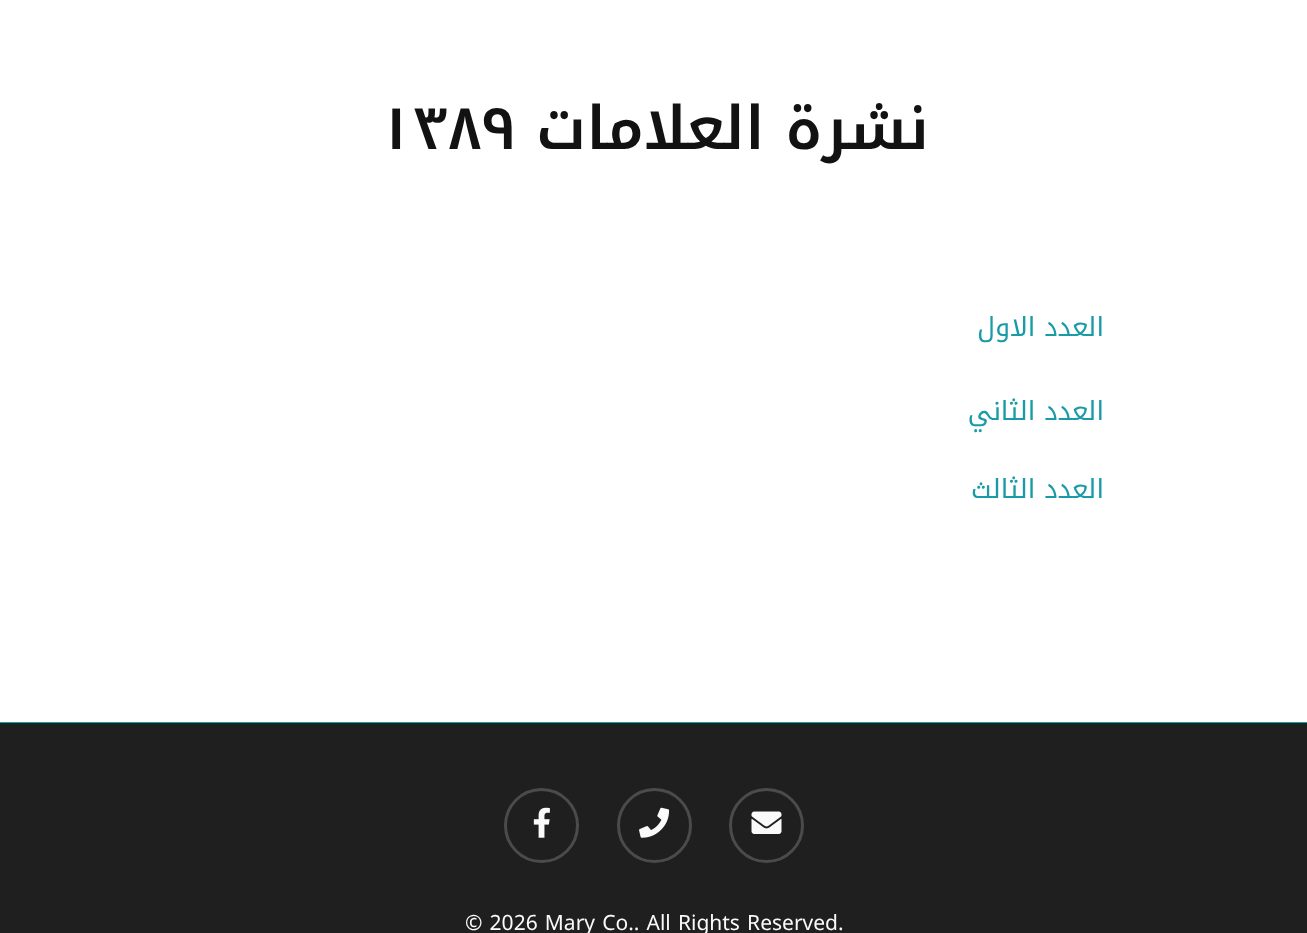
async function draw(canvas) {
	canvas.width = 1307;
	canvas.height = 933;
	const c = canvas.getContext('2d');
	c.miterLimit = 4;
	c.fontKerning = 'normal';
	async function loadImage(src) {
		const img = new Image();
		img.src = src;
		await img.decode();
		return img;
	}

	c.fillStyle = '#fff';
	c.fillRect(0, 0, 1307, 933);
	c.direction = 'rtl';
	c.font = '600 60px Noto Kufi Arabic';
	c.fillStyle = '#121212';
	c.fillText('نشرة العلامات', 929, 149);
	c.direction = 'ltr';
	c.fillText('١٣٨٩', 379, 149);
	c.direction = 'rtl';
	c.font = '26.25px Noto Kufi Arabic';
	c.fillStyle = '#189ba7';
	for (const [text, x, y] of [
		['العدد الاول', 1104, 336],
		['العدد الثاني', 1104, 420],
		['العدد الثالث', 1104, 498],
	]) {
		c.fillText(text, x, y);
	}
	c.fillRect(0, 722, 1307, 1);
	c.fillStyle = '#1f1f1f';
	c.fillRect(0, 723, 1307, 210);
	c.drawImage(await loadImage('img1.png'), 751, 811, 31, 23);
	c.beginPath();
	c.arc(766.5, 825.5, 36, 0, 2 * Math.PI);
	c.strokeStyle = '#4b4b4b';
	c.lineWidth = 3;
	c.stroke();
	c.drawImage(await loadImage('img2.png'), 639, 807, 31, 31);
	c.beginPath();
	c.arc(654.5, 825.5, 36, 0, 2 * Math.PI);
	c.stroke();
	c.drawImage(await loadImage('img3.png'), 533, 807, 17, 31);
	c.beginPath();
	c.arc(541.5, 825.5, 36, 0, 2 * Math.PI);
	c.stroke();
	c.direction = 'ltr';
	c.font = '21px Noto Kufi Arabic';
	c.fillStyle = '#fafafa';
	c.fillText('© 2026 Mary Co.. All Rights Reserved.', 465, 930);
}

draw(document.querySelector('canvas'));
